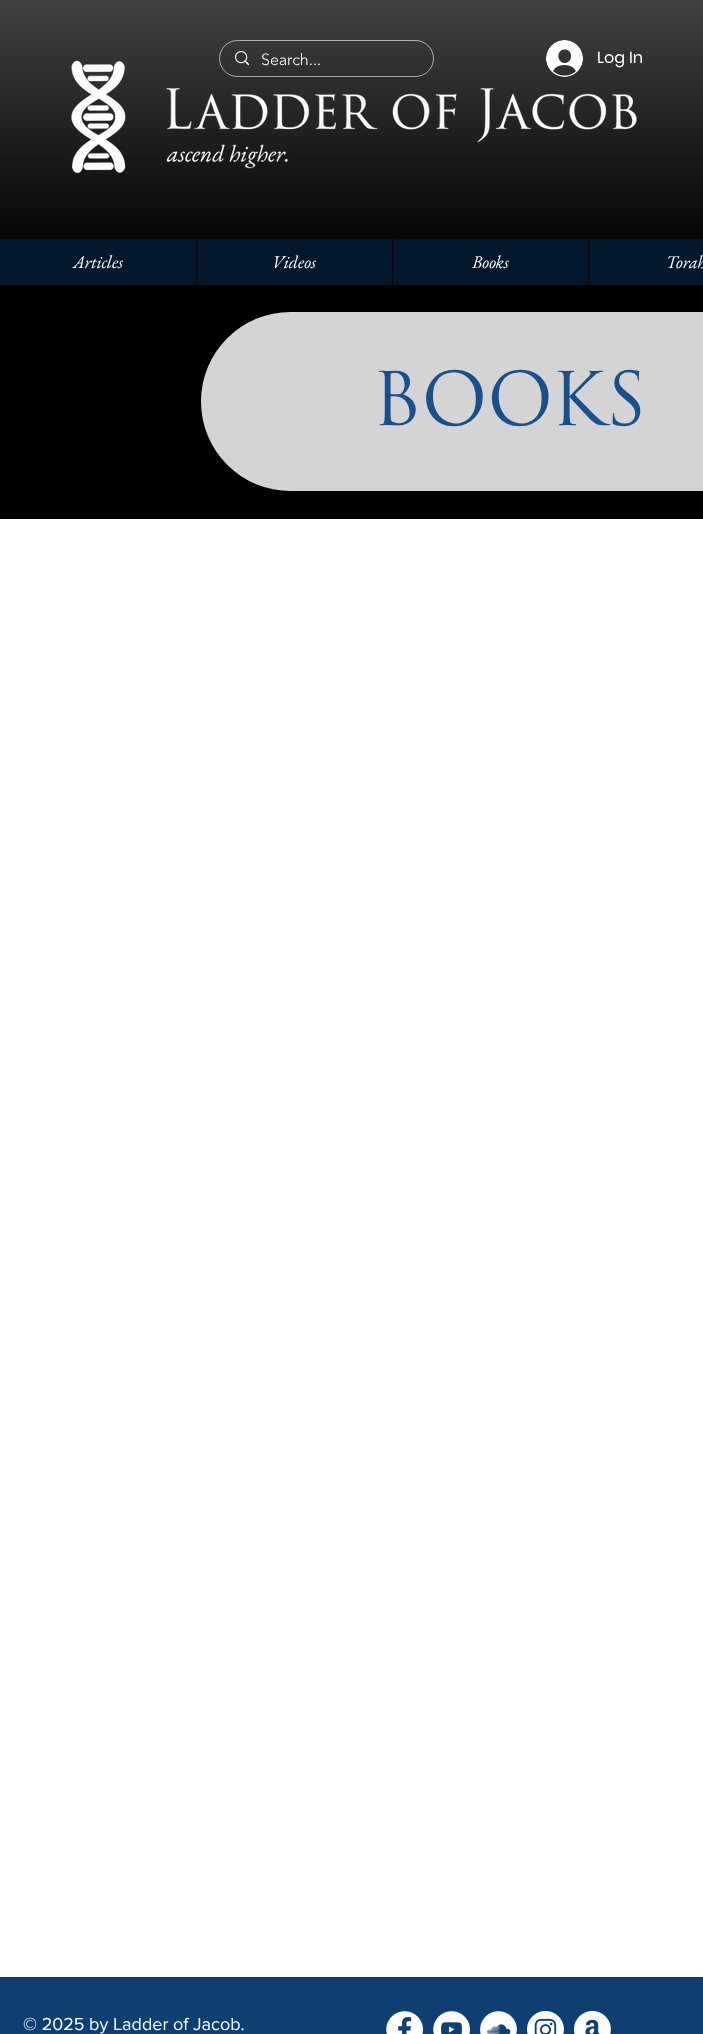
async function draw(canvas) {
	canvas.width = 703;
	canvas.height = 2034;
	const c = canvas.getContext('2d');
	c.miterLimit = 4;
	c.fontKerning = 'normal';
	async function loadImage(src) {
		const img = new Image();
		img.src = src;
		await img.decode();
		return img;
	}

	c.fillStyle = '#000';
	c.fillRect(0, 0, 703, 2034);
	c.drawImage(await loadImage('img3.png'), 0, 0, 703, 239);
	c.drawImage(await loadImage('img4.png'), 71, 60, 568, 115);
	c.beginPath();
	c.roundRect(219.5, 40.5, 214, 36, 18);
	c.strokeStyle = '#ffffff99';
	c.stroke();
	c.drawImage(await loadImage('img1.png'), 235, 51, 14, 15);
	c.font = '300 16px "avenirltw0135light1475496"';
	c.fillStyle = '#fff';
	c.fillText('Search...', 261, 65);
	c.drawImage(await loadImage('img2.png'), 546, 40, 37, 37);
	c.font = '16px Poppins';
	c.fillText('Log In', 597, 63);
	c.fillStyle = '#03182c';
	c.fillRect(0, 239, 703, 46);
	c.font = 'italic 18px EB Garamond';
	c.fillStyle = '#fff';
	c.fillText('Articles', 73, 268);
	c.fillStyle = '#000';
	c.fillRect(196, 239, 1, 46);
	c.fillStyle = '#fff';
	c.fillText('Videos', 272, 268);
	c.fillStyle = '#000';
	c.fillRect(392, 239, 1, 46);
	c.fillStyle = '#fff';
	c.fillText('Books', 472, 268);
	c.fillStyle = '#000';
	c.fillRect(588, 239, 1, 46);
	c.fillStyle = '#fff';
	c.fillText('Torah', 666, 268);
	c.fillStyle = '#d4d4d4';
	c.beginPath();
	c.roundRect(201, 312, 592, 179, 89.5);
	c.fill();
	c.font = '72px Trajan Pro';
	c.fillStyle = '#16518d';
	c.fillText('BOOKS', 372, 425);
	c.fillStyle = '#fff';
	c.fillRect(0, 519, 703, 1458);
	c.fillStyle = '#0d3f72';
	c.fillRect(0, 1977, 703, 57);
	c.font = '18px "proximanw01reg"';
	c.fillStyle = '#fff';
	c.fillText('© 2025 by Ladder of Jacob.', 23, 2030);
	c.drawImage(await loadImage('img5.png'), 386, 2011, 37, 23);
	c.drawImage(await loadImage('img6.png'), 433, 2011, 37, 23);
	c.drawImage(await loadImage('img7.png'), 480, 2011, 37, 23);
	c.drawImage(await loadImage('img8.png'), 527, 2011, 37, 23);
	c.drawImage(await loadImage('img9.png'), 574, 2011, 37, 23);
}

draw(document.querySelector('canvas'));
